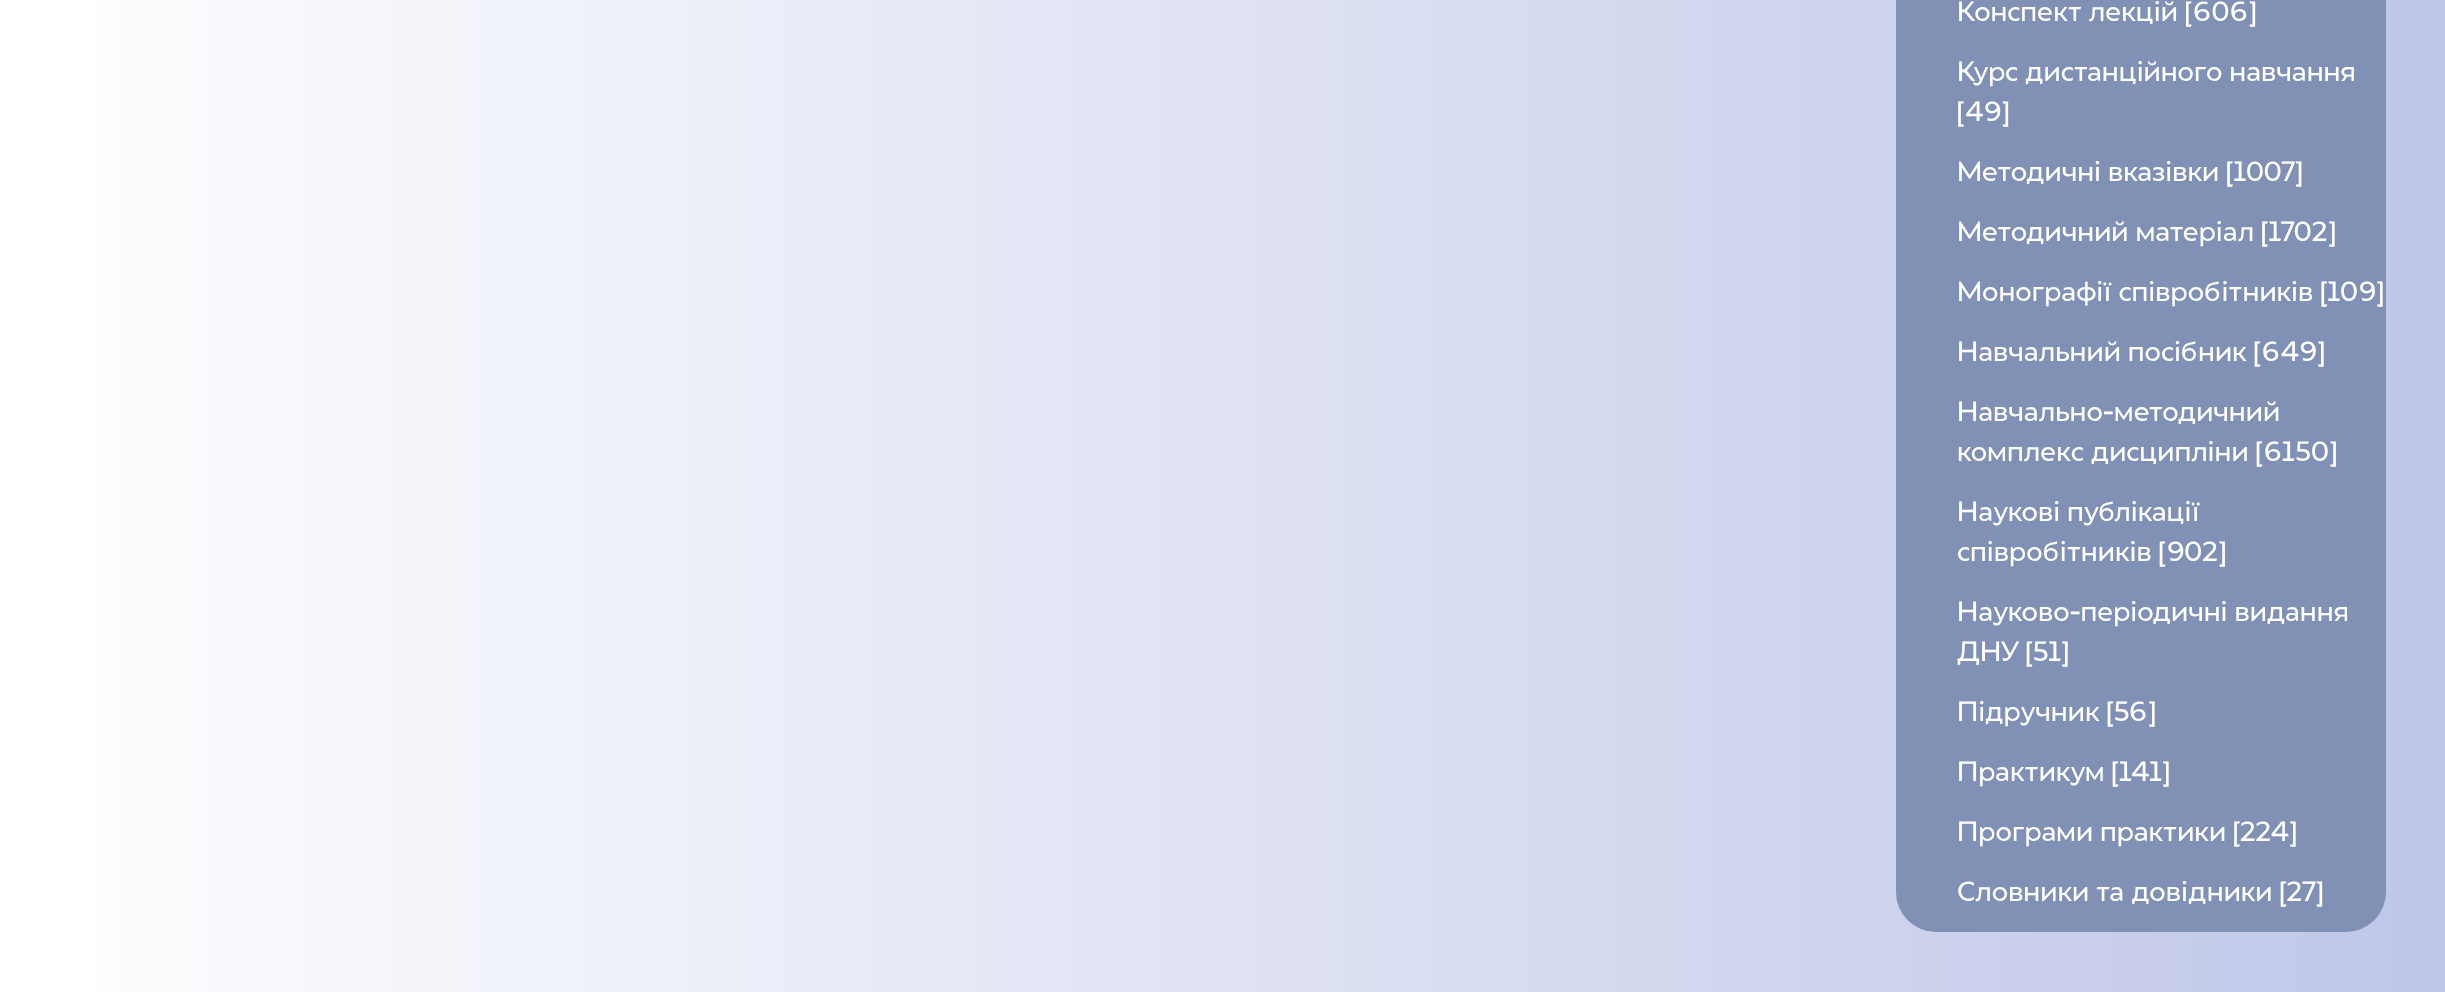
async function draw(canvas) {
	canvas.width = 2445;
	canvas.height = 992;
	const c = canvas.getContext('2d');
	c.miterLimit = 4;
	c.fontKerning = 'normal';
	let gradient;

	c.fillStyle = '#fff';
	c.fillRect(0, 0, 2445, 992);
	gradient = c.createLinearGradient(0, -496, 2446, -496);
	gradient.addColorStop(0, '#fff');
	gradient.addColorStop(1, '#bfc6e8');
	c.fillStyle = gradient;
	c.fillRect(96, 0, 2349, 992);
	c.fillStyle = '#8190b5';
	c.beginPath();
	c.roundRect(1896, -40, 490, 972, 40);
	c.fill();
	c.font = '28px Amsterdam';
	c.fillStyle = '#fff';
	for (const [text, x, y] of [
		['Конспект лекцій [606]', 1957, 21],
		['Курс дистанційного навчання', 1957, 81],
		['[49]', 1957, 121],
		['Методичні вказівки [1007]', 1957, 181],
		['Методичний матеріал [1702]', 1957, 241],
		['Монографії співробітників [109]', 1957, 301],
		['Навчальний посібник [649]', 1957, 361],
		['Навчально-методичний', 1957, 421],
		['комплекс дисципліни [6150]', 1957, 461],
		['Наукові публікації', 1957, 521],
		['співробітників [902]', 1957, 561],
		['Науково-періодичні видання', 1957, 621],
		['ДНУ [51]', 1957, 661],
		['Підручник [56]', 1957, 721],
		['Практикум [141]', 1957, 781],
		['Програми практики [224]', 1957, 841],
		['Словники та довідники [27]', 1957, 901],
	]) {
		c.fillText(text, x, y);
	}
}

draw(document.querySelector('canvas'));
